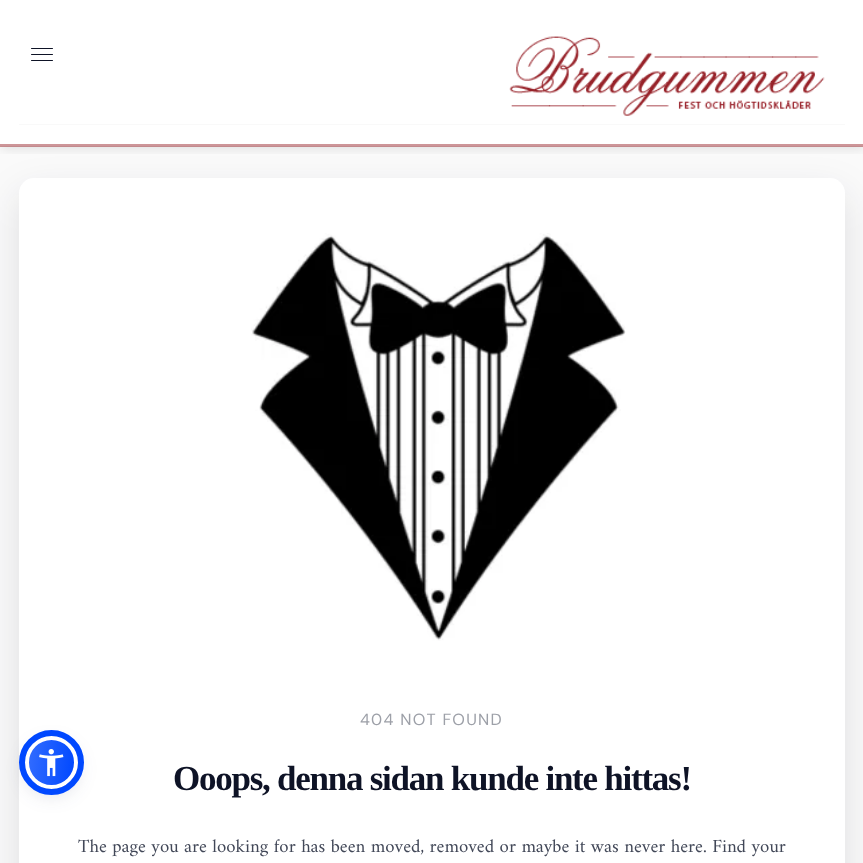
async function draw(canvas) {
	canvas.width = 863;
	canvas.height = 863;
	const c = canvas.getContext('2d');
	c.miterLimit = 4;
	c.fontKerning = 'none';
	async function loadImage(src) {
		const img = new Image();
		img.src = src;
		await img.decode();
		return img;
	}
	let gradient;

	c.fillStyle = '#fff';
	c.fillRect(0, 0, 863, 863);
	c.fillStyle = '#fafafa';
	c.fillRect(0, 146, 863, 717);
	c.fillStyle = '#0e13261f';
	c.filter = 'blur(19px)';
	c.beginPath();
	c.roundRect(19, 194, 826, 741, 15);
	c.fill();
	c.filter = 'none';
	c.fillStyle = '#fff';
	c.beginPath();
	c.roundRect(19, 178, 826, 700, 15);
	c.fill();
	c.fillStyle = '#5d649433';
	c.filter = 'blur(2.5px)';
	c.beginPath();
	c.roundRect(25, 739, 53, 52, 26);
	c.fill();
	c.filter = 'none';
	c.fillStyle = '#252c6126';
	c.filter = 'blur(9.5px)';
	c.beginPath();
	c.roundRect(25, 743, 53, 52, 26);
	c.fill();
	c.filter = 'none';
	c.save();
	c.beginPath();
	c.roundRect(25, 736, 53, 53, 26.5);
	c.clip();
	gradient = c.createLinearGradient(27, 760, 76, 765);
	gradient.addColorStop(0, '#326cff');
	gradient.addColorStop(1, '#0048ff');
	c.fillStyle = gradient;
	c.fillRect(29, 740, 45, 45);
	c.restore();
	c.beginPath();
	c.arc(51.5, 762.5, 24.5, 0, 2 * Math.PI);
	c.strokeStyle = '#fff';
	c.lineWidth = 4;
	c.stroke();
	c.beginPath();
	c.arc(51.5, 762.5, 29.5, 0, 2 * Math.PI);
	c.strokeStyle = '#0048ff';
	c.lineWidth = 6;
	c.stroke();
	c.drawImage(await loadImage('img1.png'), 39, 749, 25, 28);
	c.save();
	c.beginPath();
	c.rect(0, 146, 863, 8);
	c.clip();
	c.fillStyle = '#0000001a';
	c.filter = 'blur(6px)';
	c.beginPath();
	c.rect(1, 3, 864, 146);
	c.fill();
	c.filter = 'none';
	c.restore();
	c.fillStyle = '#9c2b3180';
	c.fillRect(0, 144, 863, 3);
	c.fillStyle = '#0e1326';
	c.beginPath();
	c.roundRect(31, 48, 22, 1, 0.5);
	c.fill();
	c.beginPath();
	c.roundRect(31, 54, 22, 1, 0.5);
	c.fill();
	c.beginPath();
	c.roundRect(31, 60, 22, 1, 0.5);
	c.fill();
	c.drawImage(await loadImage('img2.png'), 509, 36, 316, 80);
	c.fillStyle = '#f9f9f9';
	c.fillRect(19, 124, 826, 1);
	c.drawImage(await loadImage('img3.png'), 251, 233, 375, 408);
	c.letterSpacing = '1.25px';
	c.font = '16.25px DM Sans';
	c.fillStyle = '#9da0a8';
	c.fillText('404 NOT FOUND', 360, 725);
	c.letterSpacing = '-1.25px';
	c.font = 'bold 35px Liberation Serif';
	c.fillStyle = '#0e1326';
	c.fillText('Ooops, denna sidan kunde inte hittas!', 173, 790);
	c.letterSpacing = '0px';
	c.font = '18.75px Amiri';
	c.fillStyle = '#424858';
	c.fillText('The page you are looking for has been moved, removed or maybe it was never here. Find your', 78, 852);
}

draw(document.querySelector('canvas'));
